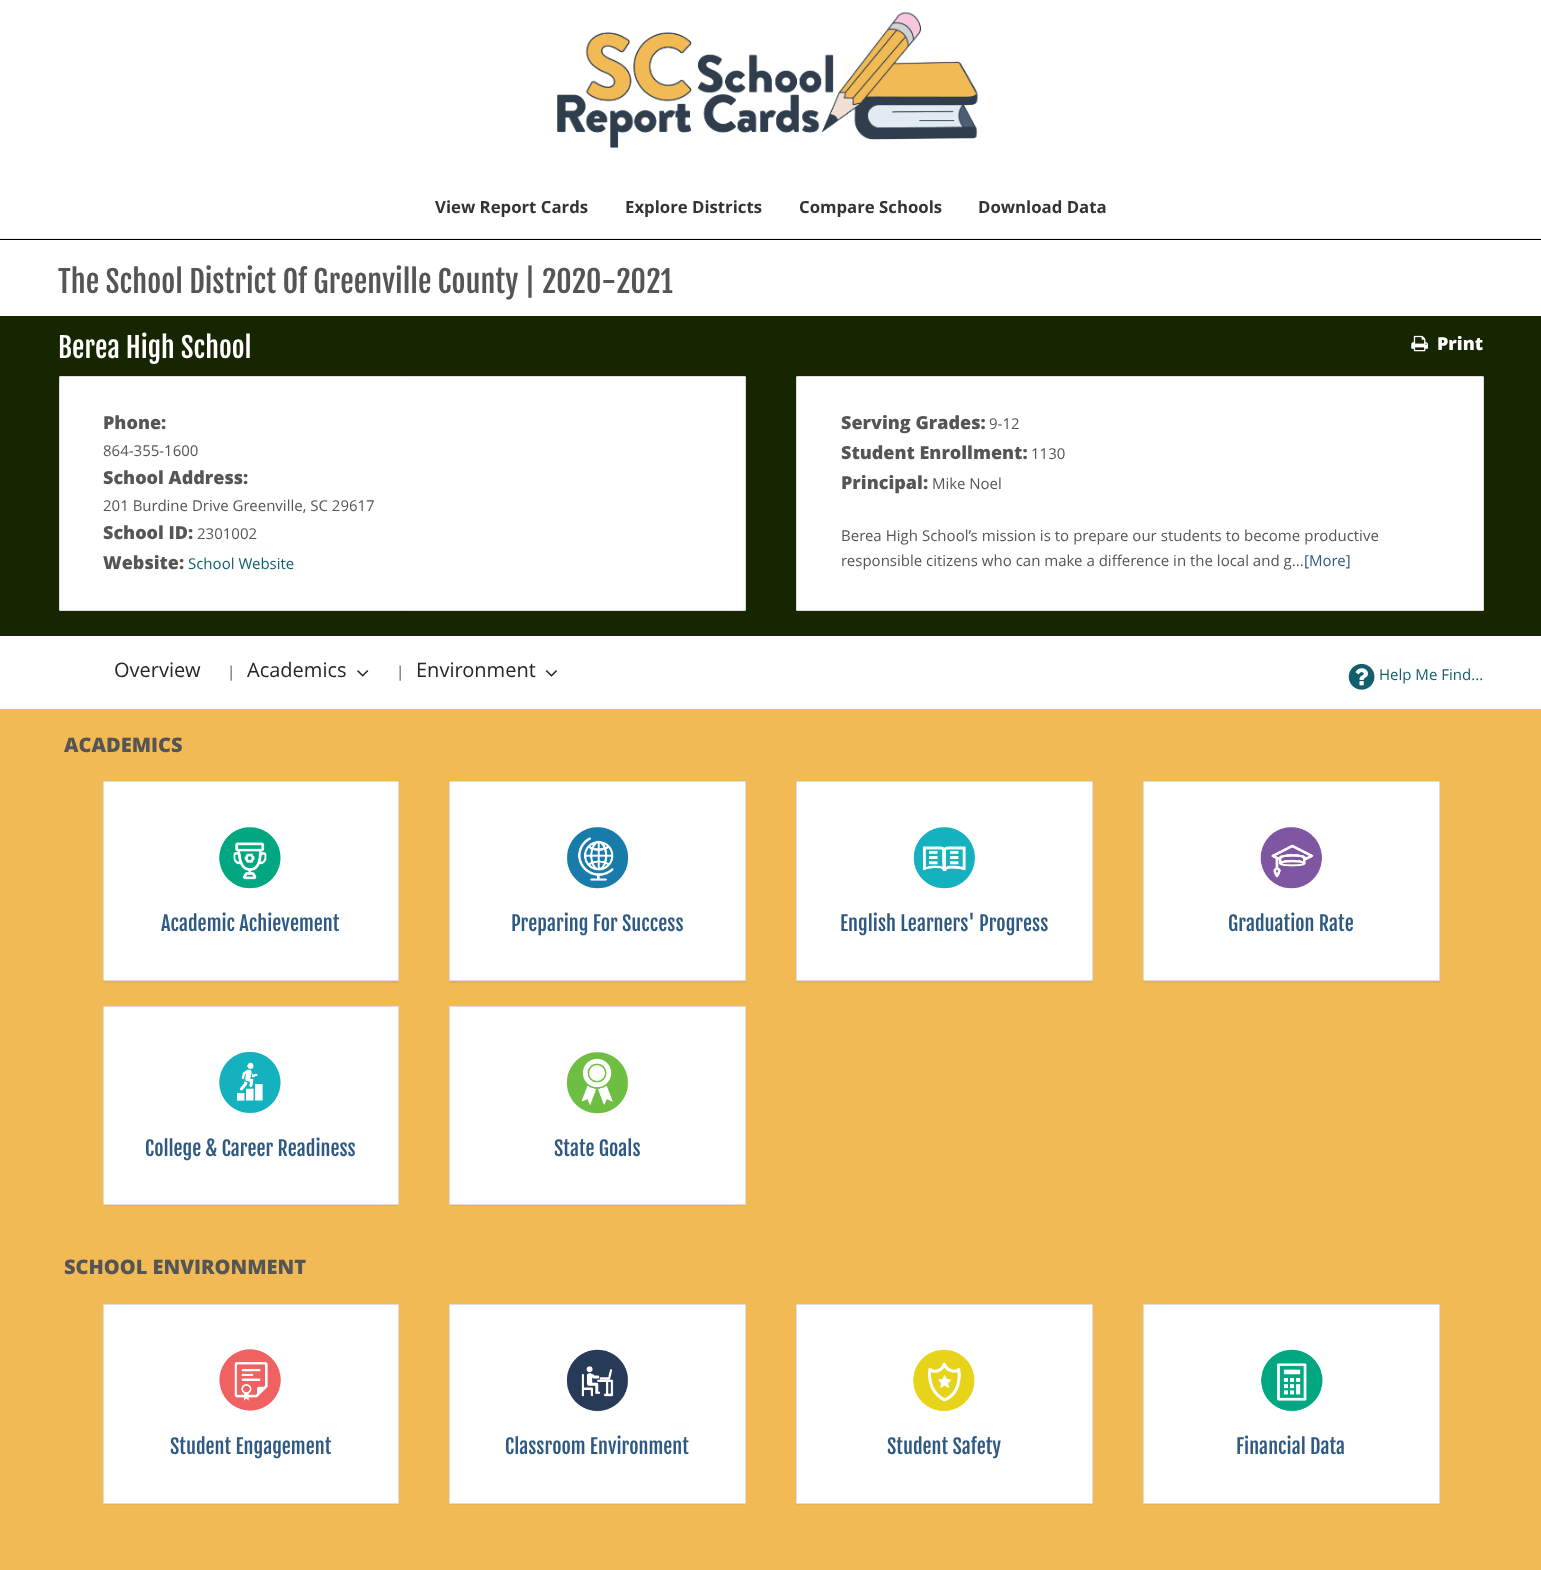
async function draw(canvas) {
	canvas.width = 1541;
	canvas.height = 1570;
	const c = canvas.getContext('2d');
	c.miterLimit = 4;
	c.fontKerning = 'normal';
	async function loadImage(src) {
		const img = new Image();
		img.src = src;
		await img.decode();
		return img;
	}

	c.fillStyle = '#f1ba55';
	c.fillRect(0, 0, 1541, 1570);
	for (const [x, y, w, h, color] of [
		[0, 239, 1541, 1, '#000'],
		[0, 0, 1541, 238, '#fff'],
		[0, 238, 1541, 1, '#eee'],
	]) {
		c.fillStyle = color;
		c.fillRect(x, y, w, h);
	}
	c.drawImage(await loadImage('img1.png'), 557, 12, 421, 136);
	c.font = 'bold 16.75px Open Sans';
	c.fillStyle = '#333';
	for (const [text, x, y] of [
		['View Report Cards', 435, 213],
		['Explore Districts', 625, 213],
		['Compare Schools', 799, 213],
		['Download Data', 978, 213],
	]) {
		c.fillText(text, x, y);
	}
	c.fillStyle = '#fff';
	c.fillRect(0, 240, 1541, 76);
	c.font = '30px Fjalla One';
	c.fillStyle = '#555';
	c.fillText('The School District Of Greenville County | 2020-2021', 58, 293);
	c.fillStyle = '#162600';
	c.fillRect(0, 316, 1541, 320);
	c.font = '27.5px Fjalla One';
	c.fillStyle = '#fff';
	c.fillText('Berea High School', 58, 358);
	c.drawImage(await loadImage('img2.png'), 1411, 335, 17, 17);
	c.font = '800 18px Open Sans';
	c.fillText('Print', 1437, 350);
	c.beginPath();
	c.roundRect(59.5, 376.5, 686, 234, 0.5);
	c.fill();
	c.strokeStyle = '#ddd';
	c.stroke();
	c.fillStyle = '#555';
	c.fillText('Phone:', 103, 429);
	c.font = '15px Open Sans';
	c.fillText('864-355-1600', 103, 456);
	c.font = '800 18px Open Sans';
	c.fillText('School Address:', 103, 484);
	c.font = '15px Open Sans';
	c.fillText('201 Burdine Drive Greenville, SC 29617', 103, 511);
	c.font = '800 18px Open Sans';
	c.fillText('School ID:', 103, 539);
	c.font = '15px Open Sans';
	c.fillText('2301002', 197, 539);
	c.font = '800 18px Open Sans';
	c.fillText('Website:', 103, 569);
	c.font = '15px Open Sans';
	c.fillStyle = '#125e6c';
	c.fillText('School Website', 188, 569);
	c.fillStyle = '#fff';
	c.beginPath();
	c.roundRect(796.5, 376.5, 687, 234, 0.5);
	c.fill();
	c.stroke();
	c.font = '800 18px Open Sans';
	c.fillStyle = '#555';
	c.fillText('Serving Grades:', 841, 429);
	c.font = '15px Open Sans';
	c.fillText('9-12', 989, 429);
	c.font = '800 18px Open Sans';
	c.fillText('Student Enrollment:', 841, 459);
	c.font = '15px Open Sans';
	c.fillText('1130', 1031, 459);
	c.font = '800 18px Open Sans';
	c.fillText('Principal:', 841, 489);
	c.font = '15px Open Sans';
	c.fillText('Mike Noel', 932, 489);
	c.wordSpacing = '0.1px';
	c.fillText('Berea High School’s mission is to prepare our students to become productive', 841, 541);
	c.wordSpacing = '0px';
	c.fillText('responsible citizens who can make a difference in the local and g...', 841, 566);
	c.fillStyle = '#2e5982';
	c.fillText('[More]', 1304, 566);
	c.fillStyle = '#fff';
	c.fillRect(0, 636, 1541, 73);
	c.font = '20px Open Sans';
	c.fillStyle = '#252525';
	c.fillText('Overview', 114, 677);
	c.font = '15px Open Sans';
	c.fillStyle = '#555';
	c.fillText('|', 227, 677);
	c.font = '20px Open Sans';
	c.fillStyle = '#252525';
	c.fillText('Academics', 247, 677);
	c.drawImage(await loadImage('img3.png'), 357, 670, 12, 7);
	c.font = '15px Open Sans';
	c.fillStyle = '#555';
	c.fillText('|', 396, 677);
	c.font = '20px Open Sans';
	c.fillStyle = '#252525';
	c.fillText('Environment', 416, 677);
	c.drawImage(await loadImage('img4.png'), 545, 670, 12, 7);
	c.drawImage(await loadImage('img5.png'), 1348, 663, 27, 27);
	c.font = '15px Open Sans';
	c.fillStyle = '#125e6c';
	c.fillText('Help Me Find...', 1379, 680);
	c.font = '800 20px Open Sans';
	c.fillStyle = '#555';
	c.fillText('ACADEMICS', 64, 752);
	c.fillStyle = '#0000000d';
	c.filter = 'blur(0.5px)';
	c.beginPath();
	c.roundRect(103, 783, 296, 200, 1);
	c.fill();
	c.filter = 'none';
	c.fillStyle = '#fff';
	c.beginPath();
	c.roundRect(103.5, 781.5, 295, 199, 0.5);
	c.fill();
	c.stroke();
	c.drawImage(await loadImage('img6.png'), 219, 827, 62, 62);
	c.font = '20px Fjalla One';
	c.fillStyle = '#2e5982';
	c.fillText('Academic Achievement', 161, 931);
	c.fillStyle = '#0000000d';
	c.filter = 'blur(0.5px)';
	c.beginPath();
	c.roundRect(449, 783, 297, 200, 1);
	c.fill();
	c.filter = 'none';
	c.fillStyle = '#fff';
	c.beginPath();
	c.roundRect(449.5, 781.5, 296, 199, 0.5);
	c.fill();
	c.stroke();
	c.drawImage(await loadImage('img7.png'), 567, 827, 61, 62);
	c.fillStyle = '#2e5982';
	c.fillText('Preparing For Success', 511, 931);
	c.fillStyle = '#0000000d';
	c.filter = 'blur(0.5px)';
	c.beginPath();
	c.roundRect(796, 783, 297, 200, 1);
	c.fill();
	c.filter = 'none';
	c.fillStyle = '#fff';
	c.beginPath();
	c.roundRect(796.5, 781.5, 296, 199, 0.5);
	c.fill();
	c.stroke();
	c.drawImage(await loadImage('img8.png'), 913, 827, 62, 62);
	c.fillStyle = '#2e5982';
	c.fillText('English Learners\' Progress', 840, 931);
	c.fillStyle = '#0000000d';
	c.filter = 'blur(0.5px)';
	c.beginPath();
	c.roundRect(1143, 783, 297, 200, 1);
	c.fill();
	c.filter = 'none';
	c.fillStyle = '#fff';
	c.beginPath();
	c.roundRect(1143.5, 781.5, 296, 199, 0.5);
	c.fill();
	c.stroke();
	c.drawImage(await loadImage('img9.png'), 1260, 827, 62, 62);
	c.fillStyle = '#2e5982';
	c.fillText('Graduation Rate', 1228, 931);
	c.fillStyle = '#0000000d';
	c.filter = 'blur(0.5px)';
	c.beginPath();
	c.roundRect(103, 1008, 296, 198, 1);
	c.fill();
	c.filter = 'none';
	c.fillStyle = '#fff';
	c.beginPath();
	c.roundRect(103.5, 1006.5, 295, 198, 0.5);
	c.fill();
	c.stroke();
	c.drawImage(await loadImage('img10.png'), 219, 1052, 62, 61);
	c.fillStyle = '#2e5982';
	c.fillText('College & Career Readiness', 145, 1156);
	c.fillStyle = '#0000000d';
	c.filter = 'blur(0.5px)';
	c.beginPath();
	c.roundRect(449, 1008, 297, 198, 1);
	c.fill();
	c.filter = 'none';
	c.fillStyle = '#fff';
	c.beginPath();
	c.roundRect(449.5, 1006.5, 296, 198, 0.5);
	c.fill();
	c.stroke();
	c.drawImage(await loadImage('img11.png'), 567, 1052, 61, 62);
	c.fillStyle = '#2e5982';
	c.fillText('State Goals', 554, 1156);
	c.font = '800 20px Open Sans';
	c.fillStyle = '#555';
	c.fillText('SCHOOL ENVIRONMENT', 64, 1274);
	c.fillStyle = '#0000000d';
	c.filter = 'blur(0.5px)';
	c.beginPath();
	c.roundRect(103, 1305, 296, 200, 1);
	c.fill();
	c.filter = 'none';
	c.fillStyle = '#fff';
	c.beginPath();
	c.roundRect(103.5, 1304.5, 295, 199, 0.5);
	c.fill();
	c.stroke();
	c.drawImage(await loadImage('img12.png'), 219, 1349, 62, 62);
	c.font = '20px Fjalla One';
	c.fillStyle = '#2e5982';
	c.fillText('Student Engagement', 170, 1454);
	c.fillStyle = '#0000000d';
	c.filter = 'blur(0.5px)';
	c.beginPath();
	c.roundRect(449, 1305, 297, 200, 1);
	c.fill();
	c.filter = 'none';
	c.fillStyle = '#fff';
	c.beginPath();
	c.roundRect(449.5, 1304.5, 296, 199, 0.5);
	c.fill();
	c.stroke();
	c.drawImage(await loadImage('img13.png'), 567, 1349, 61, 63);
	c.fillStyle = '#2e5982';
	c.fillText('Classroom Environment', 505, 1454);
	c.fillStyle = '#0000000d';
	c.filter = 'blur(0.5px)';
	c.beginPath();
	c.roundRect(796, 1305, 297, 200, 1);
	c.fill();
	c.filter = 'none';
	c.fillStyle = '#fff';
	c.beginPath();
	c.roundRect(796.5, 1304.5, 296, 199, 0.5);
	c.fill();
	c.stroke();
	c.drawImage(await loadImage('img14.png'), 913, 1349, 62, 63);
	c.fillStyle = '#2e5982';
	c.fillText('Student Safety', 887, 1454);
	c.fillStyle = '#0000000d';
	c.filter = 'blur(0.5px)';
	c.beginPath();
	c.roundRect(1143, 1305, 297, 200, 1);
	c.fill();
	c.filter = 'none';
	c.fillStyle = '#fff';
	c.beginPath();
	c.roundRect(1143.5, 1304.5, 296, 199, 0.5);
	c.fill();
	c.stroke();
	c.drawImage(await loadImage('img15.png'), 1261, 1349, 62, 63);
	c.fillStyle = '#2e5982';
	c.fillText('Financial Data', 1236, 1454);
}

draw(document.querySelector('canvas'));
